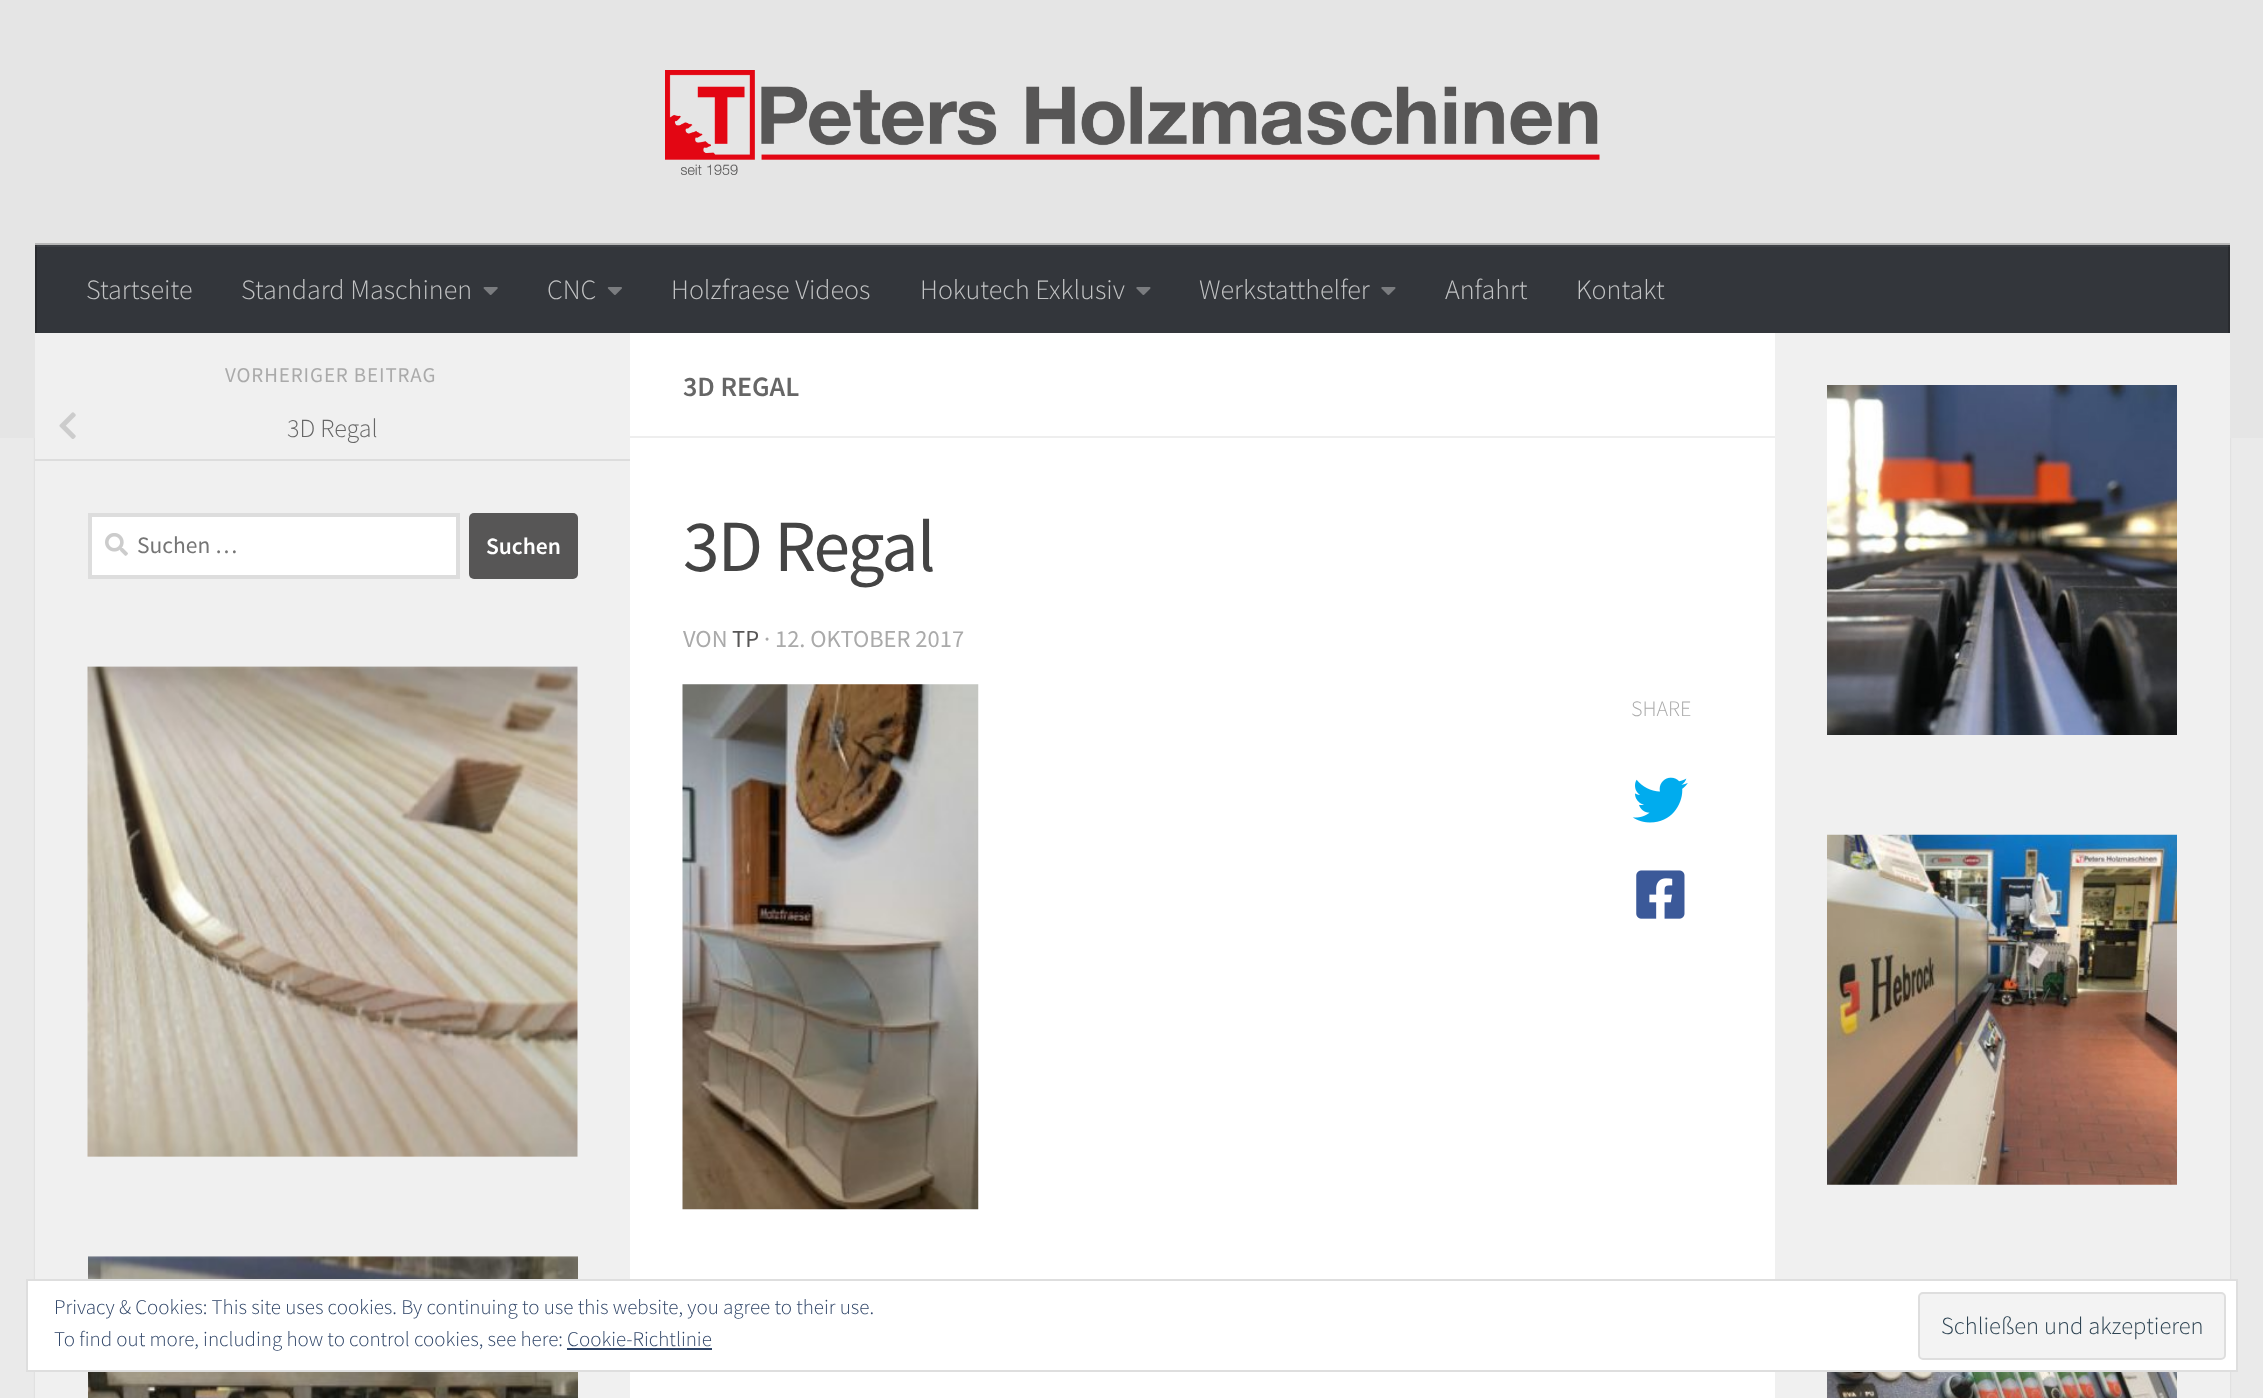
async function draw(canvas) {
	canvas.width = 2263;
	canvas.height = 1398;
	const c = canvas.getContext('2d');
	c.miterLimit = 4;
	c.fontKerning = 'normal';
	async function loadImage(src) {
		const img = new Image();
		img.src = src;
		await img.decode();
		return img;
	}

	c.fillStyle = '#eaeaea';
	c.fillRect(0, 0, 2263, 1398);
	c.fillStyle = '#0000001a';
	c.filter = 'blur(1px)';
	c.beginPath();
	c.rect(35, 334, 2195, 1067);
	c.fill();
	c.filter = 'none';
	c.fillStyle = '#e5e5e5';
	c.fillRect(0, 0, 2263, 438);
	c.drawImage(await loadImage('img1.png'), 665, 70, 935, 105);
	c.fillStyle = '#b7b7b7';
	c.beginPath();
	c.moveTo(35, 243);
	c.lineTo(35, 245);
	c.lineTo(2230, 245);
	c.lineTo(2230, 331);
	c.lineTo(2230, 243);
	c.closePath();
	c.fill();
	for (const [x, y, w, h, color] of [
		[37, 247, 2191, 86, '#33363b'],
		[35, 245, 2195, 2, '#3d4045'],
		[2228, 245, 2, 88, '#292b2f'],
		[2228, 245, 2, 2, '#343639'],
		[35, 245, 2, 88, '#292b2f'],
		[35, 245, 2, 2, '#343639'],
	]) {
		c.fillStyle = color;
		c.fillRect(x, y, w, h);
	}
	c.font = '300 28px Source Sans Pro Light';
	c.fillStyle = '#c2c3c4';
	c.fillText('Startseite', 86, 299);
	c.fillText('Standard Maschinen', 241, 299);
	c.drawImage(await loadImage('img2.png'), 483, 287, 15, 8);
	c.fillText('CNC', 547, 299);
	c.drawImage(await loadImage('img3.png'), 607, 287, 15, 8);
	c.fillText('Holzfraese Videos', 671, 299);
	c.fillText('Hokutech Exklusiv', 920, 299);
	c.drawImage(await loadImage('img4.png'), 1136, 287, 15, 8);
	c.fillText('Werkstatthelfer', 1199, 299);
	c.drawImage(await loadImage('img4.png'), 1381, 287, 15, 8);
	c.fillText('Anfahrt', 1445, 299);
	c.fillText('Kontakt', 1576, 299);
	for (const [x, y, w, h, color] of [
		[630, 333, 1145, 1065, '#fff'],
		[35, 333, 595, 1065, '#f0f0f0'],
		[1775, 333, 455, 1065, '#f0f0f0'],
	]) {
		c.fillStyle = color;
		c.fillRect(x, y, w, h);
	}
	c.letterSpacing = '0.9px';
	c.font = '21px Source Sans Pro';
	c.fillStyle = '#aaa';
	c.fillText('VORHERIGER BEITRAG', 225, 382);
	c.fillStyle = '#ddd';
	c.fillRect(35, 459, 595, 2);
	c.drawImage(await loadImage('img5.png'), 59, 412, 17, 27);
	c.letterSpacing = '0px';
	c.font = '300 26px Source Sans Pro Light';
	c.fillStyle = '#666';
	c.fillText('3D Regal', 287, 437);
	c.fillStyle = '#fff';
	c.beginPath();
	c.rect(90, 515, 368, 62);
	c.fill();
	c.strokeStyle = '#ddd';
	c.lineWidth = 4;
	c.stroke();
	c.drawImage(await loadImage('img6.png'), 105, 533, 23, 23);
	c.font = '23.5px Source Sans Pro';
	c.fillStyle = '#757575';
	c.fillText('Suchen …', 137, 553);
	c.fillStyle = '#575656';
	c.beginPath();
	c.roundRect(469, 513, 109, 66, 5);
	c.fill();
	c.font = '600 23.5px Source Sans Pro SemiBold';
	c.fillStyle = '#fff';
	c.fillText('Suchen', 486, 554);
	c.drawImage(await loadImage('img7.png'), 87, 666, 491, 491);
	c.drawImage(await loadImage('img8.png'), 88, 1256, 490, 142);
	c.fillStyle = '#eee';
	c.fillRect(630, 436, 1145, 2);
	c.font = '600 28px Source Sans Pro SemiBold';
	c.fillStyle = '#666';
	c.fillText('3D REGAL', 683, 396);
	c.letterSpacing = '-1.75px';
	c.font = '73.5px Source Sans Pro';
	c.fillStyle = '#444';
	c.fillText('3D Regal', 683, 571);
	c.letterSpacing = '0px';
	c.font = '24.5px Source Sans Pro';
	c.fillStyle = '#aaa';
	c.fillText('VON', 683, 647);
	c.fillStyle = '#575656';
	c.fillText('TP', 732, 647);
	c.fillStyle = '#aaa';
	c.fillText('· 12. OKTOBER 2017', 764, 647);
	c.drawImage(await loadImage('img9.png'), 682, 684, 297, 526);
	c.font = '300 22px Source Sans Pro Light';
	c.fillText('SHARE', 1631, 716);
	c.drawImage(await loadImage('img10.png'), 1632, 777, 56, 46);
	c.drawImage(await loadImage('img11.png'), 1636, 870, 49, 49);
	c.drawImage(await loadImage('img12.png'), 1827, 385, 350, 350);
	c.drawImage(await loadImage('img13.png'), 1827, 834, 350, 351);
	c.drawImage(await loadImage('img14.png'), 1827, 1372, 350, 26);
	c.fillStyle = '#fff';
	c.beginPath();
	c.rect(27, 1280, 2210, 91);
	c.fill();
	c.strokeStyle = '#dedede';
	c.lineWidth = 2;
	c.stroke();
	c.font = '300 21px Source Sans Pro Light';
	c.fillStyle = '#2e4467';
	c.fillText('Privacy & Cookies: This site uses cookies. By continuing to use this website, you agree to their use.', 54, 1314);
	c.fillText('To find out more, including how to control cookies, see here: Cookie-Richtlinie', 54, 1346);
	c.fillStyle = '#f3f3f3';
	c.beginPath();
	c.roundRect(1919, 1293, 306, 66, 4);
	c.fill();
	c.stroke();
	c.font = '300 24.5px Source Sans Pro Light';
	c.fillStyle = '#2e4453';
	c.fillText('Schließen und akzeptieren', 1941, 1334);
	c.fillStyle = '#2e4467';
	c.fillRect(567, 1348, 145, 2);
}

draw(document.querySelector('canvas'));
